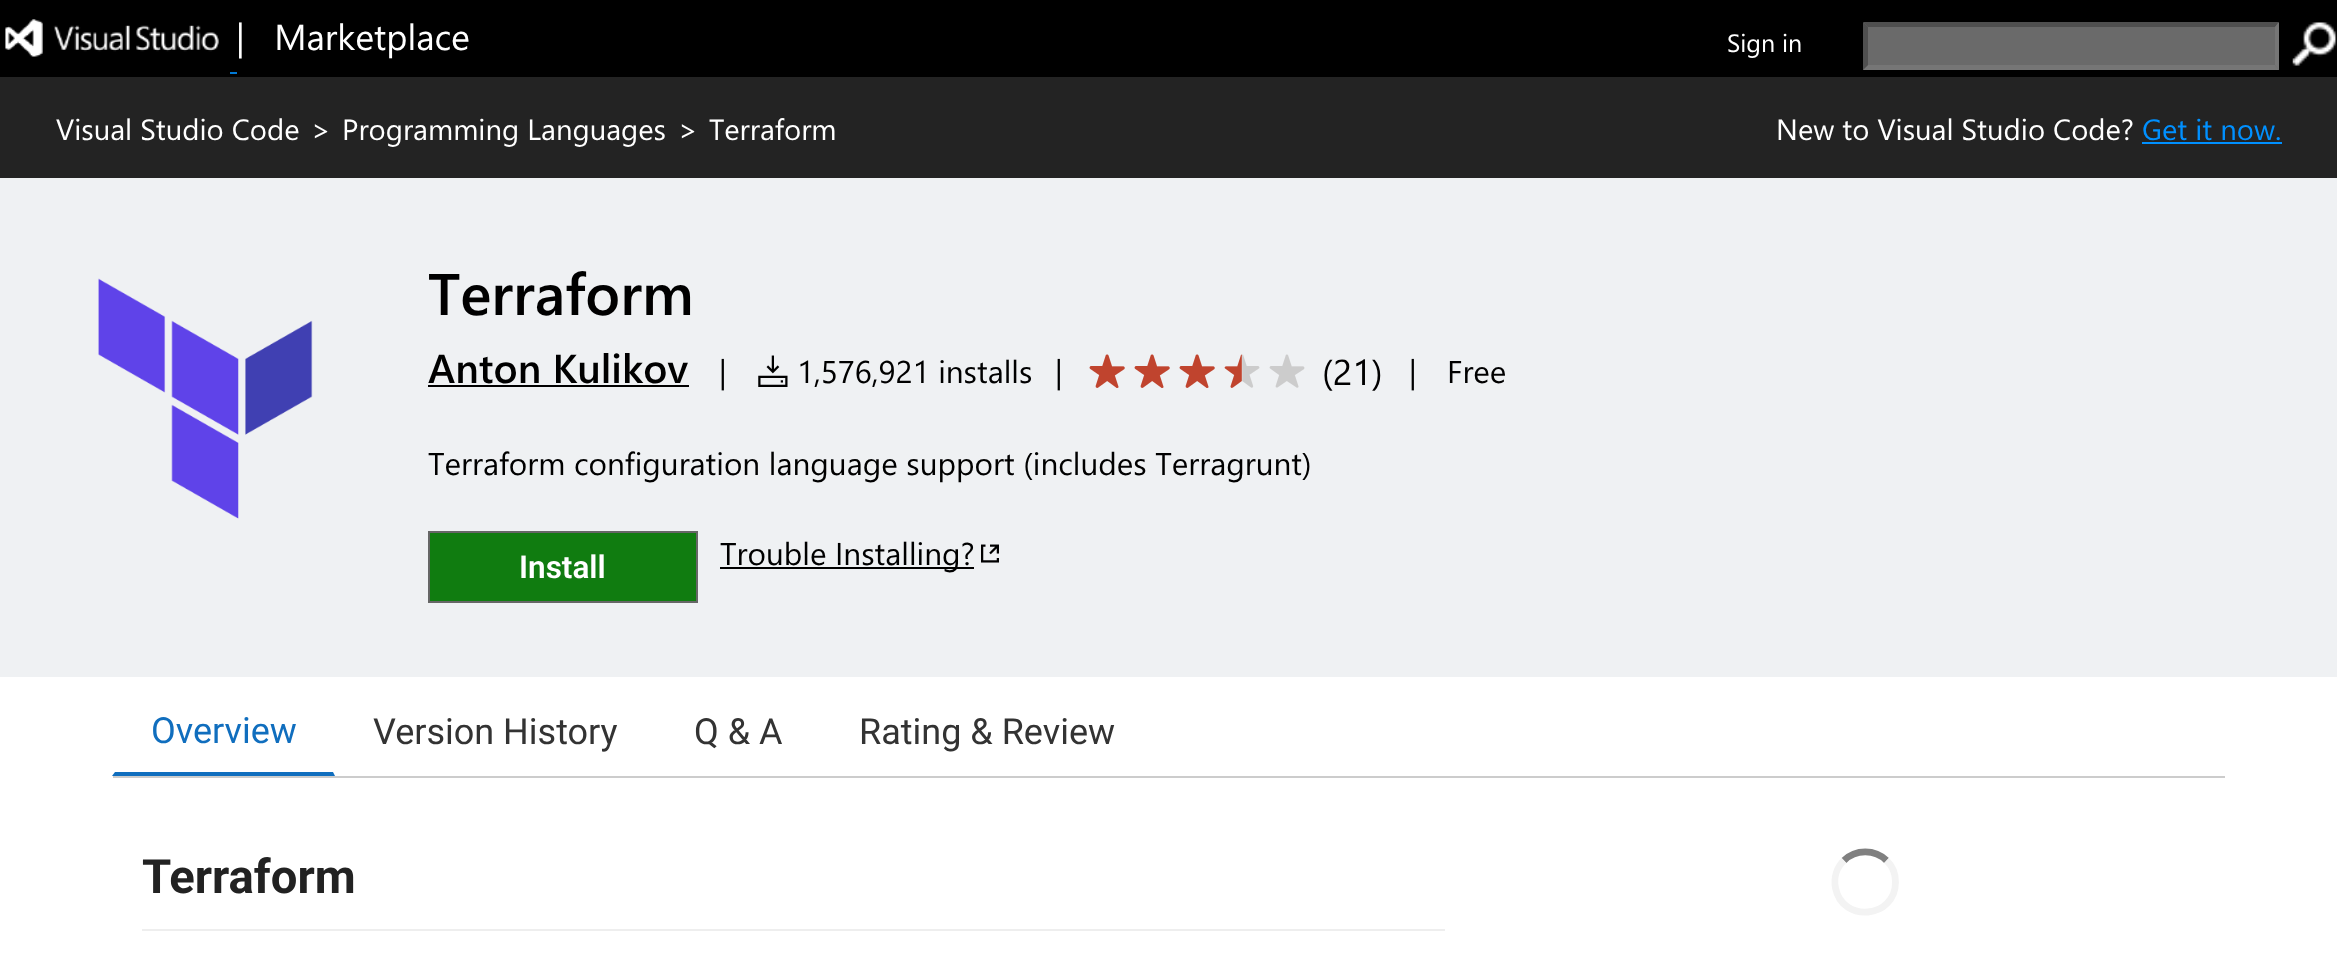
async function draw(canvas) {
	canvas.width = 2337;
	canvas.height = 967;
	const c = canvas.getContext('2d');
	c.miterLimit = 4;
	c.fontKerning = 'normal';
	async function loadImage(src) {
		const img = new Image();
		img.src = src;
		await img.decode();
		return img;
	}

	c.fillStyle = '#fff';
	c.fillRect(0, 0, 2337, 967);
	c.fillStyle = '#000';
	c.fillRect(0, 0, 2337, 77);
	c.drawImage(await loadImage('img1.png'), 5, 19, 214, 38);
	c.font = '36px Segoe UI';
	c.fillStyle = '#fff';
	c.fillText('|   Marketplace', 236, 50);
	c.fillStyle = '#0078d4';
	c.fillRect(230, 72, 7, 2);
	c.font = '25px Segoe UI';
	c.fillStyle = '#fff';
	c.fillText('Sign in', 1727, 52);
	c.fillStyle = '#6a6a6a';
	c.fillRect(1863, 23, 416, 47);
	c.fillStyle = '#4f4f4f';
	c.beginPath();
	c.moveTo(1863, 22);
	c.lineTo(2279, 22);
	c.lineTo(2275, 27);
	c.lineTo(1868, 27);
	c.closePath();
	c.fill();
	c.fillStyle = '#767676';
	c.beginPath();
	c.moveTo(2279, 22);
	c.lineTo(2279, 70);
	c.lineTo(2275, 65);
	c.lineTo(2275, 27);
	c.closePath();
	c.fill();
	c.beginPath();
	c.moveTo(2279, 70);
	c.lineTo(1863, 70);
	c.lineTo(1868, 65);
	c.lineTo(2275, 65);
	c.closePath();
	c.fill();
	c.fillStyle = '#4f4f4f';
	c.beginPath();
	c.moveTo(1863, 70);
	c.lineTo(1863, 22);
	c.lineTo(1868, 27);
	c.lineTo(1868, 65);
	c.closePath();
	c.fill();
	c.drawImage(await loadImage('img2.png'), 2292, 22, 45, 44);
	c.fillStyle = '#232323';
	c.fillRect(0, 77, 2337, 101);
	c.font = '29.25px Segoe UI';
	c.fillStyle = '#fff';
	for (const [text, x, y] of [
		['Visual Studio Code', 56, 140],
		['>', 311, 140],
		['Programming Languages', 342, 140],
		['>', 678, 140],
		['Terraform', 709, 140],
		['New to Visual Studio Code?', 1776, 140],
	]) {
		c.fillText(text, x, y);
	}
	c.fillStyle = '#0090ff';
	c.fillText('Get it now.', 2142, 140);
	c.fillRect(2142, 142, 140, 2);
	c.fillStyle = '#eff1f3';
	c.fillRect(0, 178, 2337, 499);
	c.drawImage(await loadImage('img3.png'), 98, 278, 215, 241);
	c.font = '600 58.5px Segoe UI';
	c.fillStyle = '#000';
	c.fillText('Terraform', 428, 315);
	c.font = '600 40.5px Segoe UI';
	c.fillText('Anton Kulikov', 428, 383);
	c.fillRect(428, 385, 261, 2);
	c.font = '31.5px Segoe UI';
	c.fillText('|', 719, 383);
	c.drawImage(await loadImage('img4.png'), 758, 355, 30, 32);
	c.fillText('1,576,921 installs', 797, 383);
	c.fillText('|', 1055, 383);
	c.drawImage(await loadImage('img5.png'), 1089, 354, 36, 34);
	c.drawImage(await loadImage('img5.png'), 1134, 354, 36, 34);
	c.drawImage(await loadImage('img5.png'), 1179, 354, 36, 34);
	c.drawImage(await loadImage('img6.png'), 1224, 354, 36, 34);
	c.drawImage(await loadImage('img7.png'), 1269, 354, 36, 34);
	c.font = '36px Segoe UI';
	c.fillText('(21)', 1322, 385);
	c.font = '31.5px Segoe UI';
	for (const [text, x, y] of [
		['|', 1409, 383],
		['Free', 1447, 383],
		['Terraform configuration language support (includes Terragrunt)', 428, 475],
	]) {
		c.fillText(text, x, y);
	}
	c.fillStyle = '#107c10';
	c.beginPath();
	c.rect(429, 532, 268, 70);
	c.fill();
	c.strokeStyle = '#666';
	c.lineWidth = 2;
	c.stroke();
	c.font = '600 31.5px Roboto';
	c.fillStyle = '#fff';
	c.fillText('Install', 519, 578);
	c.fillStyle = '#000';
	c.fillRect(720, 567, 254, 2);
	c.font = '31.5px Segoe UI';
	c.fillText('Trouble Installing?', 720, 565);
	c.drawImage(await loadImage('img8.png'), 981, 544, 18, 19);
	c.fillStyle = '#ccc';
	c.fillRect(113, 776, 2112, 2);
	c.fillStyle = '#106ebe';
	c.beginPath();
	c.moveTo(335, 776);
	c.lineTo(112, 776);
	c.lineTo(115, 772);
	c.lineTo(333, 772);
	c.closePath();
	c.fill();
	c.font = '36px Roboto';
	c.fillText('Overview', 151, 743);
	c.fillStyle = '#333';
	for (const [text, x, y] of [
		['Version History', 373, 744],
		['Q & A', 694, 744],
		['Rating & Review', 859, 744],
	]) {
		c.fillText(text, x, y);
	}
	c.fillStyle = '#eee';
	c.fillRect(142, 929, 1303, 2);
	c.font = 'bold 47.25px Roboto';
	c.fillStyle = '#222';
	c.fillText('Terraform', 142, 893);
	c.beginPath();
	c.moveTo(1844, 860.5);
	c.bezierCurveTo(1855.5, 849, 1875, 849, 1886.5, 860.5);
	c.strokeStyle = '#808080';
	c.lineWidth = 6.8;
	c.stroke();
	c.beginPath();
	c.moveTo(1886.5, 860.5);
	c.bezierCurveTo(1892.5, 866, 1895.5, 874, 1895.5, 882);
	c.bezierCurveTo(1895.5, 918.5, 1842.5, 923.5, 1835.5, 888);
	c.bezierCurveTo(1833.5, 878, 1836.5, 867.5, 1844, 860.5);
	c.strokeStyle = '#f3f3f3';
	c.stroke();
}

draw(document.querySelector('canvas'));
